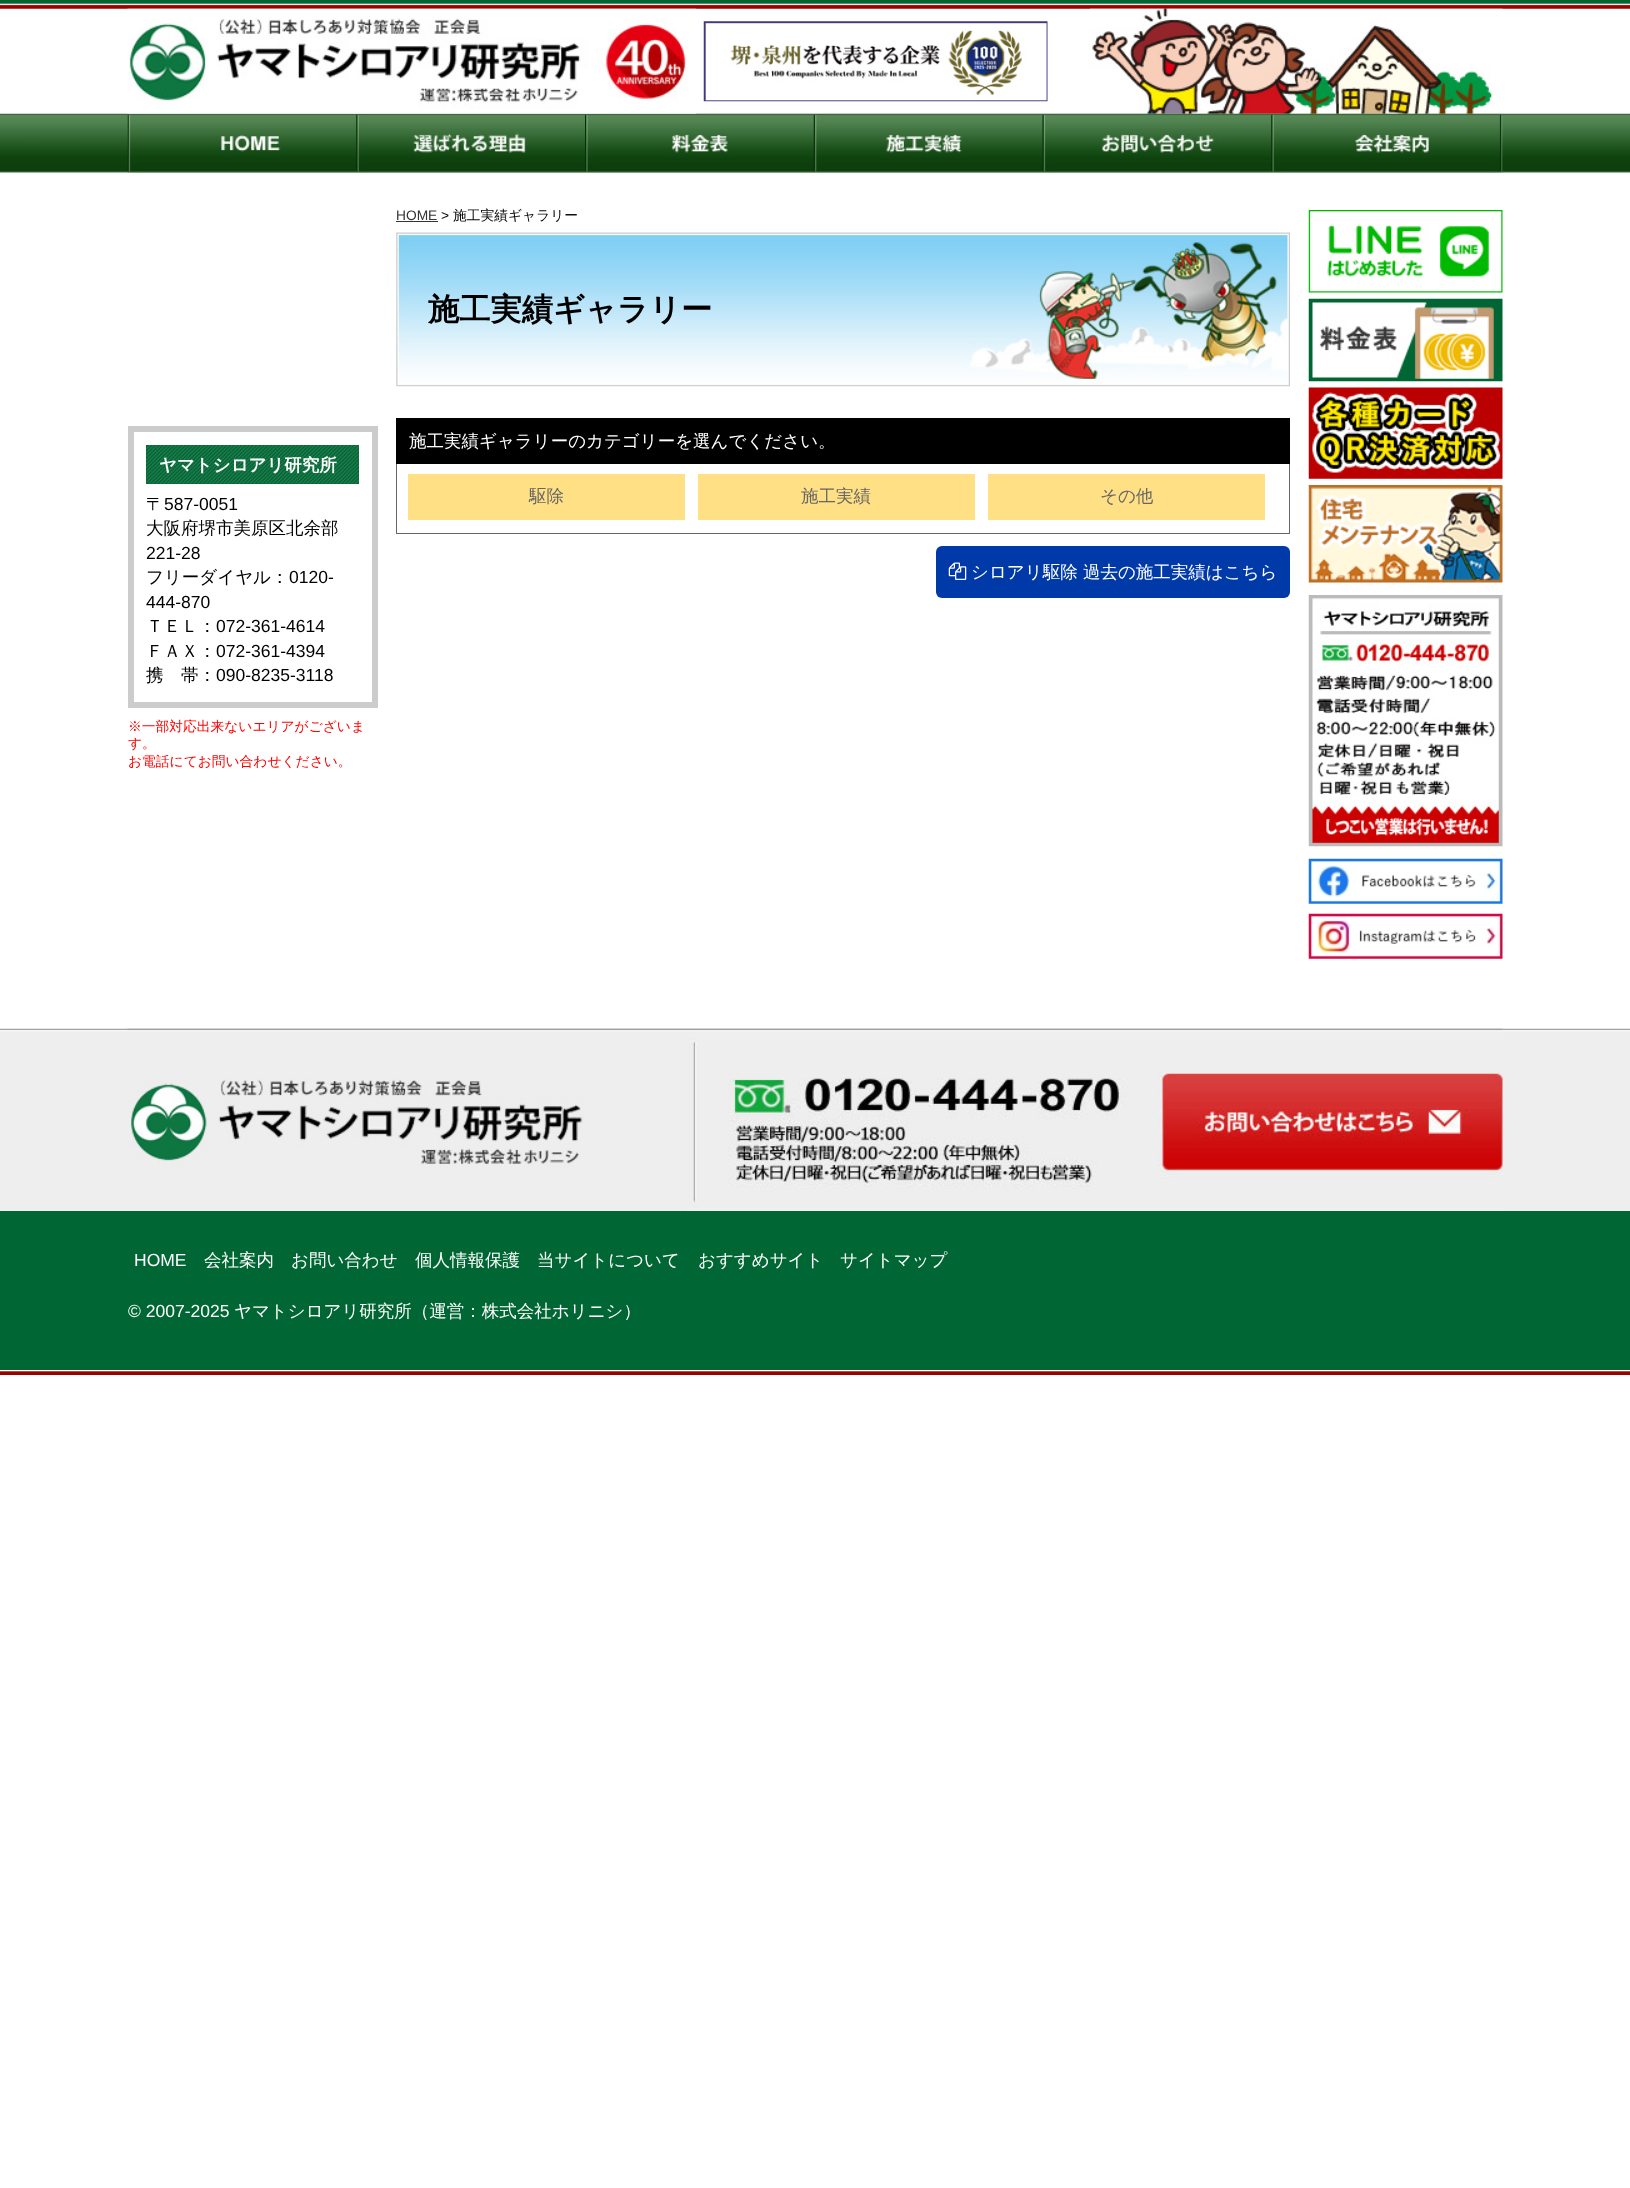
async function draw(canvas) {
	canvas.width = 1630;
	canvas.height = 2188;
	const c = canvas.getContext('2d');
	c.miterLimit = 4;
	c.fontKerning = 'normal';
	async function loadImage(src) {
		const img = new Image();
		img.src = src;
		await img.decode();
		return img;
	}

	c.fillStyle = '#fff';
	c.fillRect(0, 0, 1630, 2188);
	c.drawImage(await loadImage('img1.png'), 0, 0, 1630, 9);
	c.drawImage(await loadImage('img2.png'), 1090, 8, 413, 106);
	c.drawImage(await loadImage('img5.png'), 0, 113, 1630, 60);
	c.drawImage(await loadImage('img3.png'), 127, 8, 570, 106);
	c.drawImage(await loadImage('img4.png'), 703, 21, 345, 81);
	c.drawImage(await loadImage('img6.png'), 127, 113, 230, 60);
	c.drawImage(await loadImage('img7.png'), 356, 113, 229, 60);
	c.drawImage(await loadImage('img8.png'), 585, 113, 229, 60);
	c.drawImage(await loadImage('img9.png'), 813, 113, 230, 60);
	c.drawImage(await loadImage('img10.png'), 1042, 113, 230, 60);
	c.drawImage(await loadImage('img11.png'), 1271, 113, 232, 60);
	c.strokeStyle = '#ccc';
	c.lineWidth = 6;
	c.strokeRect(131, 429, 244, 276);
	c.fillStyle = '#063';
	c.fillRect(146, 445, 213, 39);
	c.drawImage(await loadImage('img12.png'), 146, 445, 213, 39);
	c.font = 'bold 17.5px WenQuanYi Zen Hei';
	c.fillStyle = '#fff';
	c.fillText('ヤマトシロアリ研究所', 159, 471);
	c.font = '500 17.5px WenQuanYi Zen Hei';
	c.fillStyle = '#000';
	c.fillText('〒', 146, 510);
	c.font = '17.5px Liberation Sans';
	c.fillText('587-0051', 164, 510);
	c.font = '500 17.5px WenQuanYi Zen Hei';
	c.fillText('大阪府堺市美原区北余部', 146, 534);
	c.font = '17.5px Liberation Sans';
	c.fillText('221-28', 146, 559);
	c.font = '500 17.5px WenQuanYi Zen Hei';
	c.fillText('フリーダイヤル：', 146, 583);
	c.font = '17.5px Liberation Sans';
	c.fillText('0120-', 289, 583);
	c.fillText('444-870', 146, 608);
	c.font = '500 17.5px WenQuanYi Zen Hei';
	c.fillText('ＴＥＬ：', 146, 632);
	c.font = '17.5px Liberation Sans';
	c.fillText('072-361-4614', 216, 632);
	c.font = '500 17.5px WenQuanYi Zen Hei';
	c.fillText('ＦＡＸ：', 146, 657);
	c.font = '17.5px Liberation Sans';
	c.fillText('072-361-4394', 216, 657);
	c.font = '500 17.5px WenQuanYi Zen Hei';
	c.fillText('携　帯：', 146, 681);
	c.font = '17.5px Liberation Sans';
	c.fillText('090-8235-3118', 216, 681);
	c.font = '500 13.75px WenQuanYi Zen Hei';
	c.fillStyle = '#f00';
	for (const [text, x, y] of [
		['※一部対応出来ないエリアがございま', 128, 731],
		['す。', 128, 748],
		['お電話にてお問い合わせください。', 128, 766],
	]) {
		c.fillText(text, x, y);
	}
	c.font = '13.75px Liberation Sans';
	c.fillStyle = '#333';
	c.fillText('HOME', 396, 220);
	c.fillRect(396, 221, 42, 1);
	c.fillStyle = '#000';
	c.fillText('>', 441, 220);
	c.font = '500 13.75px WenQuanYi Zen Hei';
	c.fillText('施工実績ギャラリー', 453, 220);
	c.drawImage(await loadImage('img13.png'), 396, 232, 894, 155);
	c.font = 'bold 31.25px WenQuanYi Zen Hei';
	c.fillText('施工実績ギャラリー', 428, 320);
	c.fillRect(396, 418, 894, 46);
	c.font = '500 17.5px WenQuanYi Zen Hei';
	c.fillStyle = '#fff';
	c.fillText('施工実績ギャラリーのカテゴリーを選んでください。', 409, 447);
	for (const [x, y, w, h, color] of [
		[1289, 464, 1, 70, '#666'],
		[396, 533, 894, 1, '#666'],
		[396, 464, 1, 70, '#666'],
		[408, 474, 277, 46, '#ffe085'],
	]) {
		c.fillStyle = color;
		c.fillRect(x, y, w, h);
	}
	c.fillStyle = '#666';
	c.fillText('駆除', 529, 502);
	c.fillStyle = '#ffe085';
	c.fillRect(698, 474, 277, 46);
	c.fillStyle = '#666';
	c.fillText('施工実績', 801, 502);
	c.fillStyle = '#ffe085';
	c.fillRect(988, 474, 277, 46);
	c.fillStyle = '#666';
	c.fillText('その他', 1100, 502);
	c.fillStyle = '#003aa9';
	c.beginPath();
	c.roundRect(936, 546, 354, 52, 6);
	c.fill();
	c.drawImage(await loadImage('img14.png'), 948, 562, 19, 18);
	c.fillStyle = '#fff';
	c.fillText('シロアリ駆除 過去の施工実績はこちら', 971, 578);
	c.drawImage(await loadImage('img15.png'), 1308, 210, 195, 83);
	c.drawImage(await loadImage('img16.png'), 1308, 298, 195, 84);
	c.drawImage(await loadImage('img17.png'), 1308, 387, 195, 92);
	c.drawImage(await loadImage('img18.png'), 1308, 485, 195, 98);
	c.drawImage(await loadImage('img19.png'), 1308, 595, 195, 252);
	c.drawImage(await loadImage('img20.png'), 1308, 858, 195, 46);
	c.drawImage(await loadImage('img21.png'), 1308, 913, 195, 46);
	c.fillStyle = '#eee';
	c.fillRect(0, 1031, 1630, 180);
	c.drawImage(await loadImage('img22.png'), 0, 1028, 1630, 4);
	c.drawImage(await loadImage('img23.png'), 127, 1028, 1376, 183);
	c.fillStyle = '#063';
	c.fillRect(0, 1211, 1630, 159);
	c.drawImage(await loadImage('img24.png'), 0, 1370, 1630, 5);
	c.font = '17.5px Liberation Sans';
	c.fillStyle = '#fff';
	c.fillText('HOME', 134, 1266);
	c.font = '500 17.5px WenQuanYi Zen Hei';
	for (const [text, x, y] of [
		['会社案内', 204, 1266],
		['お問い合わせ', 291, 1266],
		['個人情報保護', 415, 1266],
		['当サイトについて', 537, 1266],
		['おすすめサイト', 698, 1266],
		['サイトマップ', 840, 1266],
	]) {
		c.fillText(text, x, y);
	}
	c.font = '17.5px Liberation Sans';
	c.fillText('© 2007-2025', 128, 1317);
	c.font = '500 17.5px WenQuanYi Zen Hei';
	c.fillText('ヤマトシロアリ研究所（運営：株式会社ホリニシ）', 234, 1317);
}

draw(document.querySelector('canvas'));
